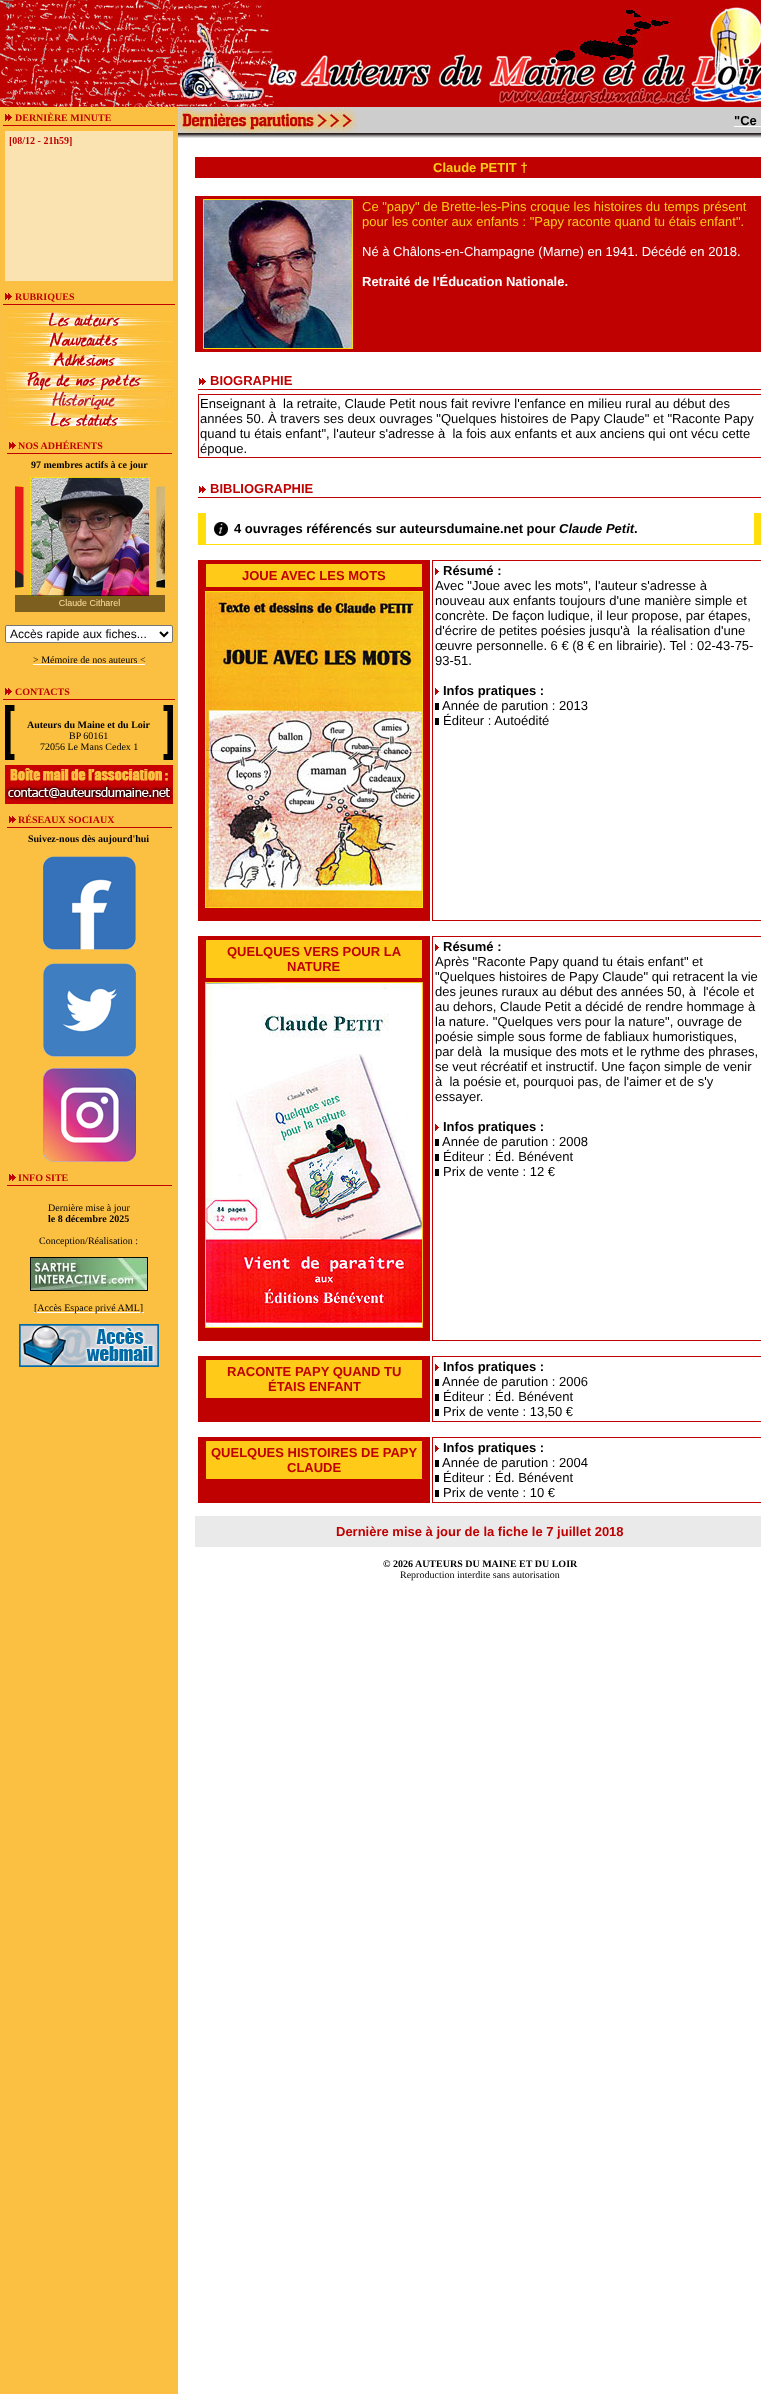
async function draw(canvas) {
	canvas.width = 761;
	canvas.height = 2394;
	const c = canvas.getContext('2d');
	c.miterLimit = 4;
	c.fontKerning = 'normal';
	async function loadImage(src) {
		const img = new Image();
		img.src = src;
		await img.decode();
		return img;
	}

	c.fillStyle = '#fbc041';
	c.fillRect(0, 0, 761, 2394);
	c.drawImage(await loadImage('img1.png'), 0, 0, 178, 107);
	c.drawImage(await loadImage('img2.png'), 178, 0, 583, 107);
	c.fillStyle = '#bf0101';
	c.fillRect(3, 125, 172, 1);
	c.drawImage(await loadImage('img3.png'), 5, 114, 7, 7);
	c.font = 'bold 10px Liberation Serif';
	c.fillText('DERNIÈRE MINUTE', 15, 121);
	c.drawImage(await loadImage('img4.png'), 5, 131, 168, 150);
	c.fillRect(3, 304, 172, 1);
	c.drawImage(await loadImage('img3.png'), 5, 293, 7, 7);
	c.fillText('RUBRIQUES', 15, 300);
	c.drawImage(await loadImage('img5.png'), 5, 310, 168, 20);
	c.drawImage(await loadImage('img6.png'), 5, 330, 168, 20);
	c.drawImage(await loadImage('img7.png'), 5, 350, 168, 20);
	c.drawImage(await loadImage('img8.png'), 5, 370, 168, 20);
	c.drawImage(await loadImage('img9.png'), 5, 390, 168, 20);
	c.drawImage(await loadImage('img10.png'), 5, 410, 168, 20);
	c.fillRect(7, 453, 165, 1);
	c.drawImage(await loadImage('img3.png'), 9, 442, 7, 7);
	c.fillText('NOS ADHÉRENTS', 18, 449);
	c.fillStyle = '#000';
	c.fillText('97 membres actifs à ce jour', 31, 468);
	c.drawImage(await loadImage('img11.png'), 15, 470, 150, 142);
	c.fillStyle = '#fff';
	c.beginPath();
	c.roundRect(5.5, 625.5, 167, 17, 1.5);
	c.fill();
	c.strokeStyle = '#767676';
	c.stroke();
	c.beginPath();
	c.moveTo(160, 632);
	c.lineTo(164, 636);
	c.lineTo(168, 632);
	c.strokeStyle = '#000';
	c.lineWidth = 2;
	c.stroke();
	c.font = '12px Liberation Sans';
	c.fillStyle = '#000';
	c.fillText('Accès rapide aux fiches...', 10, 638);
	c.font = '10px Liberation Serif';
	c.fillText('> Mémoire de nos auteurs <', 33, 663);
	c.fillStyle = '#fff';
	c.fillRect(33, 664, 112, 1);
	c.fillStyle = '#bf0101';
	c.fillRect(3, 699, 172, 1);
	c.drawImage(await loadImage('img3.png'), 5, 688, 7, 7);
	c.font = 'bold 10px Liberation Serif';
	c.fillText('CONTACTS', 15, 695);
	c.drawImage(await loadImage('img12.png'), 5, 705, 168, 56);
	c.fillStyle = '#000';
	c.fillText('Auteurs du Maine et du Loir', 27, 728);
	c.font = '10px Liberation Serif';
	c.fillText('BP 60161', 69, 739);
	c.fillText('72056 Le Mans Cedex 1', 40, 750);
	c.drawImage(await loadImage('img13.png'), 5, 765, 168, 39);
	c.fillStyle = '#bf0101';
	c.fillRect(7, 827, 165, 1);
	c.drawImage(await loadImage('img3.png'), 9, 816, 7, 7);
	c.font = 'bold 10px Liberation Serif';
	c.fillText('RÉSEAUX SOCIAUX', 18, 823);
	c.fillStyle = '#000';
	c.fillText('Suivez-nous dès aujourd\'hui', 28, 842);
	c.drawImage(await loadImage('img14.png'), 43, 856, 93, 94);
	c.drawImage(await loadImage('img15.png'), 43, 963, 93, 94);
	c.drawImage(await loadImage('img16.png'), 43, 1068, 93, 94);
	c.fillStyle = '#bf0101';
	c.fillRect(7, 1185, 165, 1);
	c.drawImage(await loadImage('img3.png'), 9, 1174, 7, 7);
	c.fillText('INFO SITE', 18, 1181);
	c.font = '10px Liberation Serif';
	c.fillStyle = '#000';
	c.fillText('Dernière mise à jour', 48, 1211);
	c.font = 'bold 10px Liberation Serif';
	c.fillText('le 8 décembre 2025', 48, 1222);
	c.font = '10px Liberation Serif';
	c.fillText('Conception/Réalisation :', 39, 1244);
	c.drawImage(await loadImage('img17.png'), 30, 1257, 118, 34);
	c.fillStyle = '#fff';
	c.fillRect(34, 1312, 110, 1);
	c.fillStyle = '#000';
	c.fillText('[Accès Espace privé AML]', 34, 1311);
	c.drawImage(await loadImage('img18.png'), 19, 1324, 140, 43);
	c.fillStyle = '#fff';
	c.fillRect(178, 138, 583, 2256);
	c.fillStyle = '#cdcdcd';
	c.fillRect(358, 107, 403, 26);
	c.drawImage(await loadImage('img19.png'), 178, 107, 180, 26);
	c.font = 'bold 13px Liberation Sans';
	c.fillStyle = '#000';
	c.fillText('"Ce', 734, 125);
	c.fillStyle = '#fff';
	c.fillRect(734, 126, 27, 1);
	c.drawImage(await loadImage('img20.png'), 178, 133, 583, 5);
	c.fillStyle = '#bf0101';
	c.fillRect(195, 157, 566, 21);
	c.fillStyle = '#ffca18';
	c.fillText('Claude PETIT †', 433, 172);
	c.fillStyle = '#bf0101';
	c.fillRect(195, 196, 566, 156);
	c.drawImage(await loadImage('img21.png'), 203, 199, 150, 150);
	c.font = '13px Liberation Sans';
	c.fillStyle = '#ffca18';
	c.fillText('Ce "papy" de Brette-les-Pins croque les histoires du temps présent', 362, 211);
	c.fillText('pour les conter aux enfants : "Papy raconte quand tu étais enfant".', 362, 226);
	c.fillStyle = '#fff';
	c.fillText('Né à Châlons-en-Champagne (Marne) en 1941. Décédé en 2018.', 362, 256);
	c.font = 'bold 13px Liberation Sans';
	c.fillText('Retraité de l\'Éducation Nationale.', 362, 286);
	c.fillStyle = '#bf0101';
	c.fillRect(198, 389, 563, 1);
	c.drawImage(await loadImage('img22.png'), 199, 378, 7, 7);
	c.fillText('BIOGRAPHIE', 210, 385);
	c.strokeStyle = '#bf0101';
	c.lineWidth = 1;
	c.strokeRect(198.5, 394.5, 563, 63);
	c.font = '13px Liberation Sans';
	c.fillStyle = '#000';
	for (const [text, x, y] of [
		['Enseignant à  la retraite, Claude Petit nous fait revivre l\'enfance en milieu rural au début des', 200, 408],
		['années 50. À travers ses deux ouvrages "Quelques histoires de Papy Claude" et "Raconte Papy', 200, 423],
		['quand tu étais enfant", l\'auteur s\'adresse à  la fois aux enfants et aux anciens qui ont vécu cette', 200, 438],
		['époque.', 200, 453],
	]) {
		c.fillText(text, x, y);
	}
	c.fillStyle = '#bf0101';
	c.fillRect(198, 497, 563, 1);
	c.drawImage(await loadImage('img22.png'), 199, 486, 7, 7);
	c.font = 'bold 13px Liberation Sans';
	c.fillText('BIBLIOGRAPHIE', 210, 493);
	for (const [x, y, w, h, color] of [
		[754, 513, 7, 32, '#ffde0b'],
		[198, 544, 563, 1, '#ffde0b'],
		[198, 513, 8, 32, '#ffde0b'],
	]) {
		c.fillStyle = color;
		c.fillRect(x, y, w, h);
	}
	c.drawImage(await loadImage('img23.png'), 214, 522, 14, 14);
	c.fillStyle = '#000';
	c.fillText('4 ouvrages référencés sur auteursdumaine.net pour', 234, 533);
	c.font = 'italic bold 13px Liberation Sans';
	c.fillText('Claude Petit', 559, 533);
	c.font = 'bold 13px Liberation Sans';
	c.fillText('.', 634, 533);
	c.fillStyle = '#bf0101';
	c.fillRect(198, 560, 232, 361);
	c.fillStyle = '#ffca18';
	c.fillRect(206, 564, 216, 23);
	c.fillStyle = '#bf0101';
	c.fillText('JOUE AVEC LES MOTS', 242, 580);
	c.drawImage(await loadImage('img24.png'), 205, 591, 218, 317);
	c.strokeRect(432.5, 560.5, 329, 360);
	c.drawImage(await loadImage('img25.png'), 435, 568, 4, 7);
	c.fillStyle = '#000';
	c.fillText('Résumé :', 443, 575);
	c.font = '13px Liberation Sans';
	for (const [text, x, y] of [
		['Avec "Joue avec les mots", l\'auteur s\'adresse à', 435, 590],
		['nouveau aux enfants toujours d\'une manière simple et', 435, 605],
		['concrète. De façon ludique, il leur propose, par étapes,', 435, 620],
		['d\'écrire de petites poésies jusqu\'à  la réalisation d\'une', 435, 635],
		['œuvre personnelle. 6 € (8 € en librairie). Tel : 02-43-75-', 435, 650],
		['93-51.', 435, 665],
	]) {
		c.fillText(text, x, y);
	}
	c.drawImage(await loadImage('img25.png'), 435, 688, 4, 7);
	c.font = 'bold 13px Liberation Sans';
	c.fillText('Infos pratiques :', 443, 695);
	c.font = '13px Liberation Sans';
	c.fillText('Année de parution : 2013', 442, 710);
	c.fillRect(435, 703, 4, 7);
	c.fillText('Éditeur : Autoédité', 443, 725);
	for (const [x, y, w, h, color] of [
		[435, 718, 4, 7, '#000'],
		[198, 936, 232, 405, '#bf0101'],
		[206, 940, 216, 38, '#ffca18'],
	]) {
		c.fillStyle = color;
		c.fillRect(x, y, w, h);
	}
	c.font = 'bold 13px Liberation Sans';
	c.fillStyle = '#bf0101';
	c.fillText('QUELQUES VERS POUR LA', 227, 956);
	c.fillText('NATURE', 287, 971);
	c.drawImage(await loadImage('img26.png'), 205, 982, 218, 346);
	c.strokeRect(432.5, 936.5, 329, 404);
	c.drawImage(await loadImage('img25.png'), 435, 944, 4, 7);
	c.fillStyle = '#000';
	c.fillText('Résumé :', 443, 951);
	c.font = '13px Liberation Sans';
	for (const [text, x, y] of [
		['Après "Raconte Papy quand tu étais enfant" et', 435, 966],
		['"Quelques histoires de Papy Claude" qui retracent la vie', 435, 981],
		['des jeunes ruraux au début des années 50, à  l\'école et', 435, 996],
		['au dehors, Claude Petit a décidé de rendre hommage à', 435, 1011],
		['la nature. "Quelques vers pour la nature", ouvrage de', 435, 1026],
		['poésie simple sous forme de fabliaux humoristiques,', 435, 1041],
		['par delà  la musique des mots et le rythme des phrases,', 435, 1056],
		['se veut récréatif et instructif. Une façon simple de venir', 435, 1071],
		['à  la poésie et, pourquoi pas, de l\'aimer et de s\'y', 435, 1086],
		['essayer.', 435, 1101],
	]) {
		c.fillText(text, x, y);
	}
	c.drawImage(await loadImage('img25.png'), 435, 1124, 4, 7);
	c.font = 'bold 13px Liberation Sans';
	c.fillText('Infos pratiques :', 443, 1131);
	c.font = '13px Liberation Sans';
	c.fillText('Année de parution : 2008', 442, 1146);
	c.fillRect(435, 1139, 4, 7);
	c.fillText('Éditeur : Éd. Bénévent', 443, 1161);
	c.fillRect(435, 1154, 4, 7);
	c.fillText('Prix de vente : 12 €', 443, 1176);
	for (const [x, y, w, h, color] of [
		[435, 1169, 4, 7, '#000'],
		[198, 1356, 232, 66, '#bf0101'],
		[206, 1360, 216, 38, '#ffca18'],
	]) {
		c.fillStyle = color;
		c.fillRect(x, y, w, h);
	}
	c.font = 'bold 13px Liberation Sans';
	c.fillStyle = '#bf0101';
	c.fillText('RACONTE PAPY QUAND TU', 227, 1376);
	c.fillText('ÉTAIS ENFANT', 268, 1391);
	c.strokeRect(432.5, 1356.5, 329, 65);
	c.drawImage(await loadImage('img25.png'), 435, 1364, 4, 7);
	c.fillStyle = '#000';
	c.fillText('Infos pratiques :', 443, 1371);
	c.font = '13px Liberation Sans';
	c.fillText('Année de parution : 2006', 442, 1386);
	c.fillRect(435, 1379, 4, 7);
	c.fillText('Éditeur : Éd. Bénévent', 443, 1401);
	c.fillRect(435, 1394, 4, 7);
	c.fillText('Prix de vente : 13,50 €', 443, 1416);
	for (const [x, y, w, h, color] of [
		[435, 1409, 4, 7, '#000'],
		[198, 1437, 232, 66, '#bf0101'],
		[206, 1441, 216, 38, '#ffca18'],
	]) {
		c.fillStyle = color;
		c.fillRect(x, y, w, h);
	}
	c.font = 'bold 13px Liberation Sans';
	c.fillStyle = '#bf0101';
	c.fillText('QUELQUES HISTOIRES DE PAPY', 211, 1457);
	c.fillText('CLAUDE', 287, 1472);
	c.strokeRect(432.5, 1437.5, 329, 65);
	c.drawImage(await loadImage('img25.png'), 435, 1445, 4, 7);
	c.fillStyle = '#000';
	c.fillText('Infos pratiques :', 443, 1452);
	c.font = '13px Liberation Sans';
	c.fillText('Année de parution : 2004', 442, 1467);
	c.fillRect(435, 1460, 4, 7);
	c.fillText('Éditeur : Éd. Bénévent', 443, 1482);
	c.fillRect(435, 1475, 4, 7);
	c.fillText('Prix de vente : 10 €', 443, 1497);
	c.fillRect(435, 1490, 4, 7);
	c.fillStyle = '#eaeaea';
	c.fillRect(195, 1516, 566, 31);
	c.font = 'bold 13px Liberation Sans';
	c.fillStyle = '#bf0101';
	c.fillText('Dernière mise à jour de la fiche le 7 juillet 2018', 336, 1536);
	c.font = 'bold 10px Liberation Serif';
	c.fillStyle = '#000';
	c.fillText('© 2026 AUTEURS DU MAINE ET DU LOIR', 383, 1567);
	c.font = '10px Liberation Serif';
	c.fillText('Reproduction interdite sans autorisation', 400, 1578);
}

draw(document.querySelector('canvas'));
